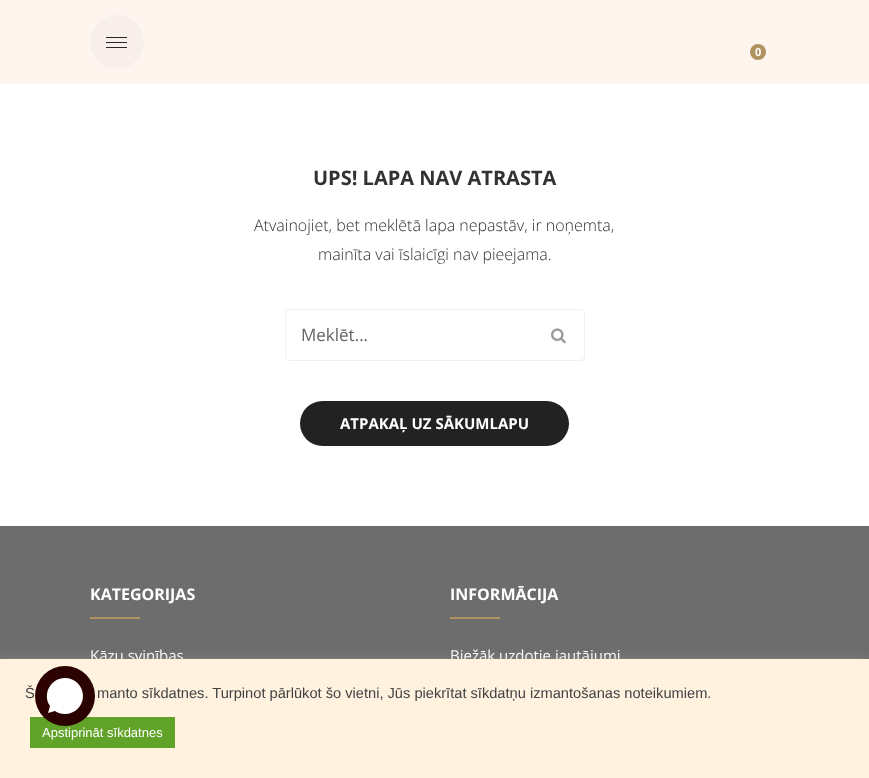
async function draw(canvas) {
	canvas.width = 869;
	canvas.height = 778;
	const c = canvas.getContext('2d');
	c.miterLimit = 4;
	c.fontKerning = 'normal';
	async function loadImage(src) {
		const img = new Image();
		img.src = src;
		await img.decode();
		return img;
	}

	c.fillStyle = '#fff';
	c.fillRect(0, 0, 869, 778);
	c.fillStyle = '#fef5ef';
	c.fillRect(0, 0, 869, 84);
	c.fillStyle = '#f8efeb';
	c.beginPath();
	c.arc(117, 42, 27, 0, 2 * Math.PI);
	c.fill();
	for (const [x, y, w, h, color] of [
		[106, 37, 21, 1, '#24262b'],
		[106, 42, 21, 1, '#24262b'],
		[106, 47, 21, 1, '#24262b'],
	]) {
		c.fillStyle = color;
		c.fillRect(x, y, w, h);
	}
	c.fillStyle = '#b19361';
	c.beginPath();
	c.arc(758, 52, 8, 0, 2 * Math.PI);
	c.fill();
	c.font = 'bold 11px Open Sans';
	c.fillStyle = '#fff';
	c.fillText('0', 755, 56);
	c.font = 'bold 20px Open Sans';
	c.fillStyle = '#323232';
	c.fillText('UPS! LAPA NAV ATRASTA', 313, 185);
	c.font = '300 16px Open Sans';
	c.fillText('Atvainojiet, bet meklētā lapa nepastāv, ir noņemta,', 254, 231);
	c.fillText('mainīta vai īslaicīgi nav pieejama.', 318, 260);
	c.beginPath();
	c.roundRect(285.5, 309.5, 299, 51, 3.5);
	c.strokeStyle = '#f0f0f0';
	c.stroke();
	c.font = '17px Open Sans';
	c.fillStyle = '#666';
	c.fillText('Meklēt...', 301, 341);
	c.drawImage(await loadImage('img1.png'), 551, 328, 15, 16);
	c.fillStyle = '#222';
	c.beginPath();
	c.roundRect(300, 401, 269, 45, 22.5);
	c.fill();
	c.font = 'bold 15px Open Sans';
	c.fillStyle = '#fff';
	c.fillText('ATPAKAĻ UZ SĀKUMLAPU', 340, 429);
	c.fillStyle = '#6d6d6d';
	c.fillRect(0, 526, 869, 133);
	c.font = 'bold 16px Open Sans';
	c.fillStyle = '#fff';
	c.fillText('KATEGORIJAS', 90, 600);
	c.fillStyle = '#b19361';
	c.fillRect(90, 617, 50, 2);
	c.font = '15px Open Sans';
	c.fillStyle = '#fff';
	c.fillText('Kāzu svinības', 90, 661);
	c.font = 'bold 16px Open Sans';
	c.fillText('INFORMĀCIJA', 450, 600);
	c.fillStyle = '#b19361';
	c.fillRect(450, 617, 50, 2);
	c.font = '15px Open Sans';
	c.fillStyle = '#fff';
	c.fillText('Biežāk uzdotie jautājumi', 450, 661);
	c.fillStyle = '#acabab4d';
	c.filter = 'blur(5px)';
	c.beginPath();
	c.rect(0, 658, 869, 119);
	c.fill();
	c.filter = 'none';
	c.fillStyle = '#fff3e0';
	c.fillRect(0, 659, 869, 119);
	c.fillStyle = '#61a229';
	c.fillRect(30, 717, 145, 31);
	c.fillStyle = '#2b0200';
	c.beginPath();
	c.arc(65, 696, 30, 0, 2 * Math.PI);
	c.fill();
	c.fillStyle = '#fff';
	c.beginPath();
	c.moveTo(65, 678);
	c.bezierCurveTo(50.5, 678, 42, 694.5, 50, 706);
	c.lineTo(48, 713);
	c.lineTo(55, 711);
	c.bezierCurveTo(57.5, 713, 61, 714, 65, 714);
	c.bezierCurveTo(75, 714, 83, 706, 83, 696);
	c.bezierCurveTo(83, 686, 75, 678, 65, 678);
	c.closePath();
	c.fill();
	c.font = '14.65px Liberation Sans';
	c.fillStyle = '#424242';
	c.fillText('Š', 25, 698);
	c.fillText('manto sīkdatnes. Turpinot pārlūkot šo vietni, Jūs piekrītat sīkdatņu izmantošanas noteikumiem.', 97, 698);
	c.font = '13px Liberation Sans';
	c.fillStyle = '#fff';
	c.fillText('Apstiprināt sīkdatnes', 42, 737);
}

draw(document.querySelector('canvas'));
